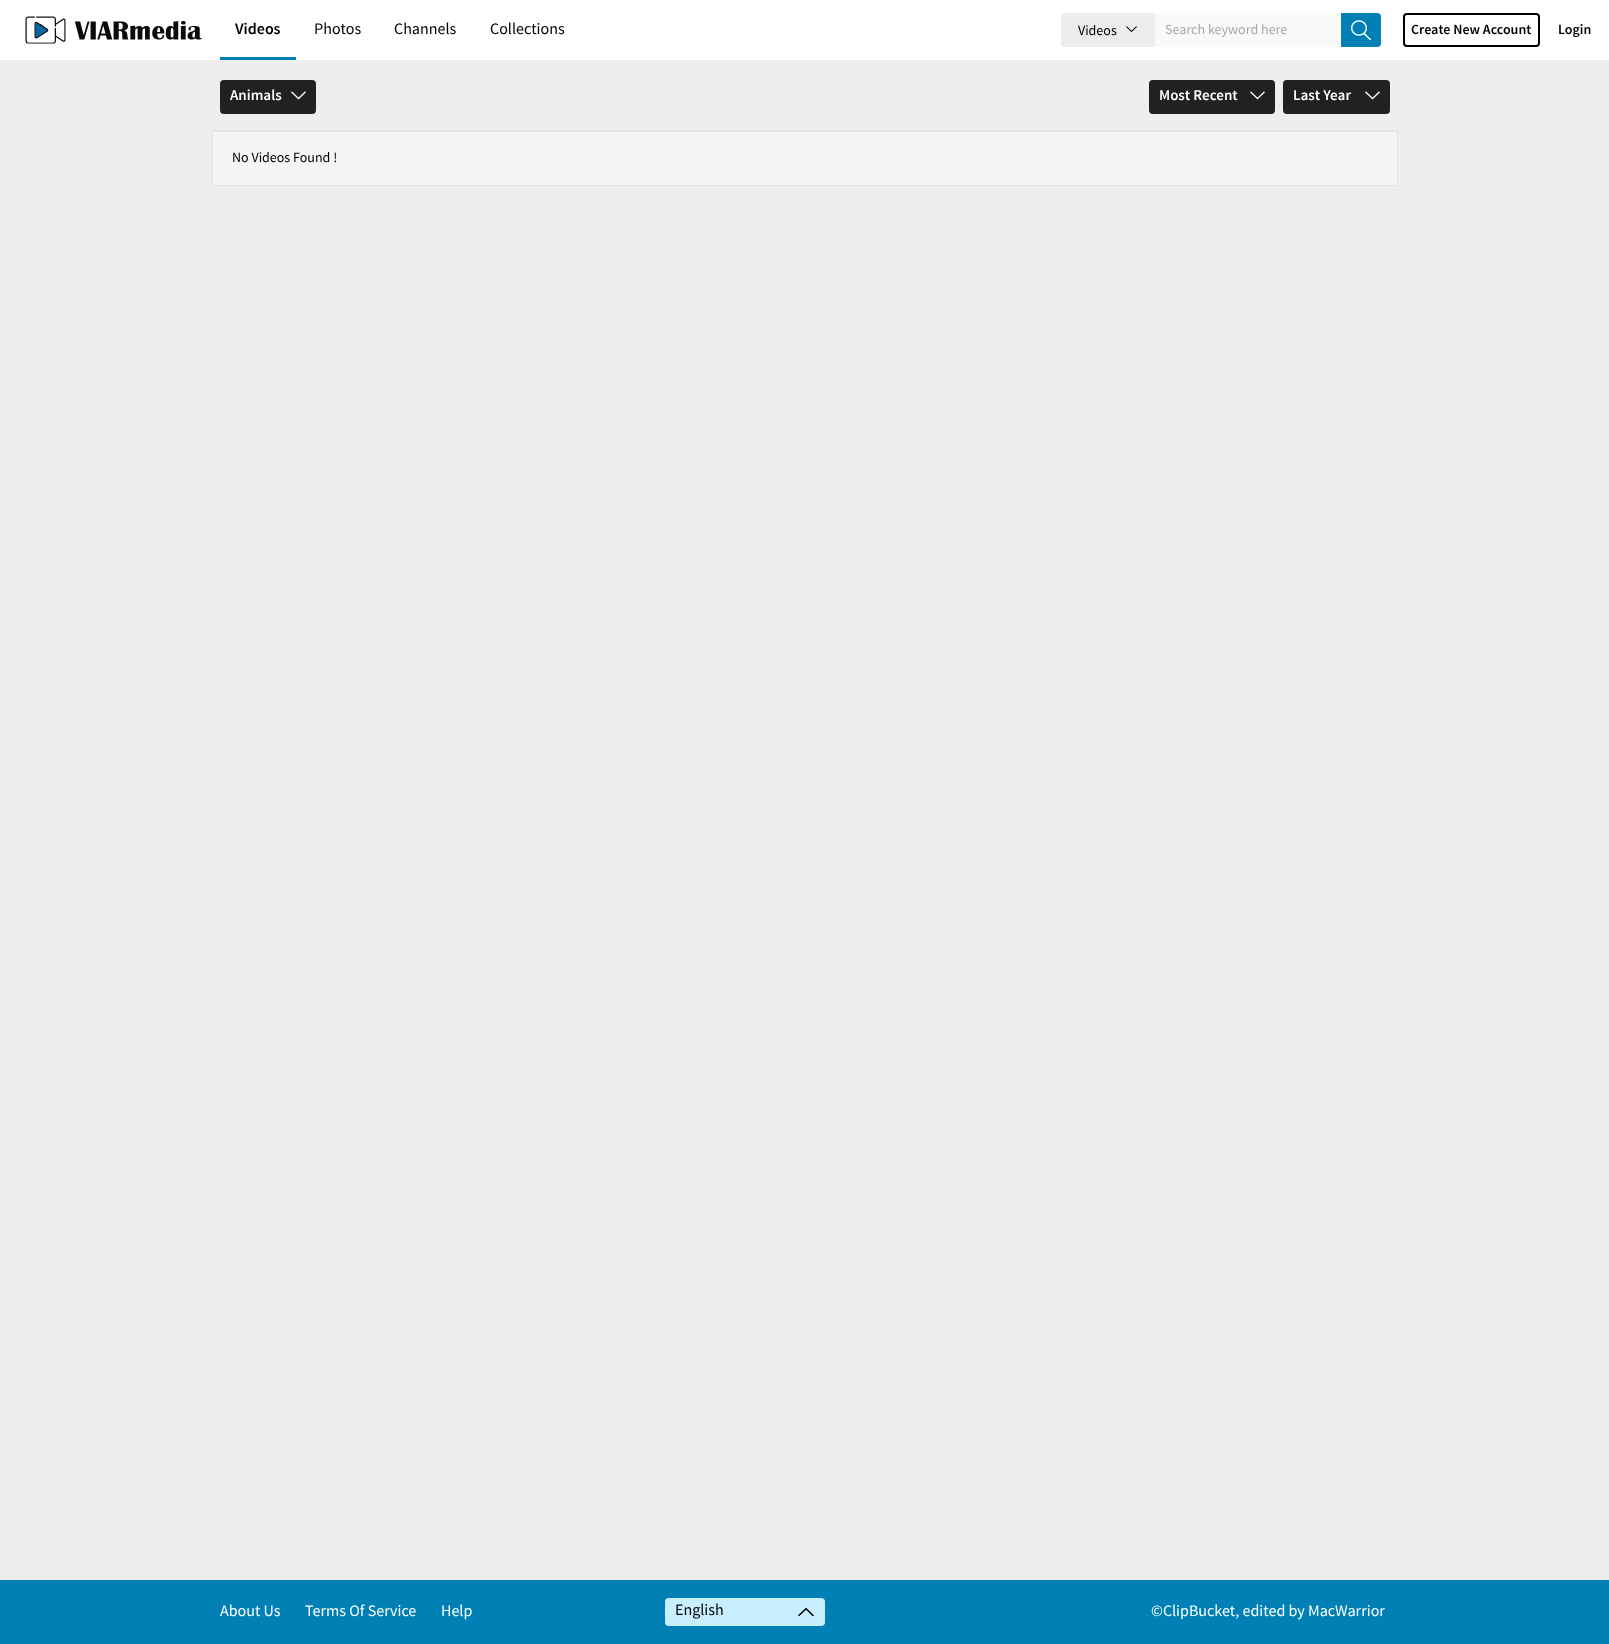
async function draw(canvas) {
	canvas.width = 1609;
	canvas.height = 1644;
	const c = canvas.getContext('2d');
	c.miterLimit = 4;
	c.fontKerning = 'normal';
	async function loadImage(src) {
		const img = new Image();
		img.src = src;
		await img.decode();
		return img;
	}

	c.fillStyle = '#eee';
	c.fillRect(0, 0, 1609, 1644);
	c.fillStyle = '#fff';
	c.fillRect(0, 0, 1609, 60);
	c.drawImage(await loadImage('img1.png'), 25, 16, 177, 28);
	c.font = '600 16px Source Sans Pro';
	c.fillStyle = '#000';
	c.fillText('Videos', 235, 34);
	c.fillStyle = '#0080b4';
	c.fillRect(220, 57, 76, 3);
	c.font = '16px Source Sans Pro';
	c.fillStyle = '#000';
	for (const [text, x, y] of [
		['Photos', 314, 34],
		['Channels', 394, 34],
		['Collections', 490, 34],
	]) {
		c.fillText(text, x, y);
	}
	c.fillStyle = '#f9f9f9';
	c.beginPath();
	c.roundRect(1061, 13, 320, 34, 4);
	c.fill();
	c.fillStyle = '#ececec';
	c.beginPath();
	c.roundRect(1061, 13, 94, 34, [4, 0, 0, 4]);
	c.fill();
	c.font = '14px Source Sans Pro';
	c.fillStyle = '#000';
	c.fillText('Videos', 1078, 35);
	c.drawImage(await loadImage('img2.png'), 1126, 26, 11, 7);
	c.fillStyle = '#a8a8a8';
	c.fillText('Search keyword here', 1165, 34);
	c.fillStyle = '#0080b4';
	c.beginPath();
	c.roundRect(1341, 13, 40, 34, [0, 4, 4, 0]);
	c.fill();
	c.drawImage(await loadImage('img3.png'), 1351, 20, 20, 21);
	c.beginPath();
	c.roundRect(1404, 14, 135, 32, 3);
	c.strokeStyle = '#000';
	c.lineWidth = 2;
	c.stroke();
	c.font = '600 14px Source Sans Pro';
	c.fillStyle = '#000';
	c.fillText('Create New Account', 1411, 34);
	c.fillText('Login', 1558, 34);
	c.fillStyle = '#212121';
	c.beginPath();
	c.roundRect(220, 80, 96, 34, 4);
	c.fill();
	c.font = '600 15px Source Sans Pro';
	c.fillStyle = '#fff';
	c.fillText('Animals', 230, 100);
	c.drawImage(await loadImage('img4.png'), 291, 91, 15, 9);
	c.fillStyle = '#212121';
	c.beginPath();
	c.roundRect(1149, 80, 126, 34, 4);
	c.fill();
	c.fillStyle = '#fff';
	c.fillText('Most Recent', 1159, 100);
	c.drawImage(await loadImage('img4.png'), 1250, 91, 15, 9);
	c.fillStyle = '#212121';
	c.beginPath();
	c.roundRect(1283, 80, 107, 34, 4);
	c.fill();
	c.fillStyle = '#fff';
	c.fillText('Last Year', 1293, 100);
	c.drawImage(await loadImage('img4.png'), 1365, 91, 15, 9);
	c.fillStyle = '#f5f5f5';
	c.fillRect(213, 132, 1184, 53);
	c.fillStyle = '#e9e9e9';
	c.fillRect(213, 131, 1184, 1);
	c.strokeStyle = '#e3e3e3';
	c.lineWidth = 1;
	c.strokeRect(212.5, 130.5, 1185, 55);
	c.font = '14px Source Sans Pro';
	c.fillStyle = '#000';
	c.fillText('No Videos Found !', 232, 162);
	c.fillStyle = '#0080b4';
	c.fillRect(0, 1580, 1609, 64);
	c.font = '16px Source Sans Pro';
	c.fillStyle = '#fff';
	for (const [text, x, y] of [
		['About Us', 220, 1616],
		['Terms Of Service', 305, 1616],
		['Help', 441, 1616],
	]) {
		c.fillText(text, x, y);
	}
	c.fillStyle = '#c8efff';
	c.beginPath();
	c.roundRect(665, 1598, 160, 28, 4);
	c.fill();
	c.fillStyle = '#000';
	c.fillText('English', 675, 1615);
	c.drawImage(await loadImage('img5.png'), 798, 1607, 16, 10);
	c.fillStyle = '#fff';
	c.fillText('©ClipBucket, edited by MacWarrior', 1151, 1616);
}

draw(document.querySelector('canvas'));
